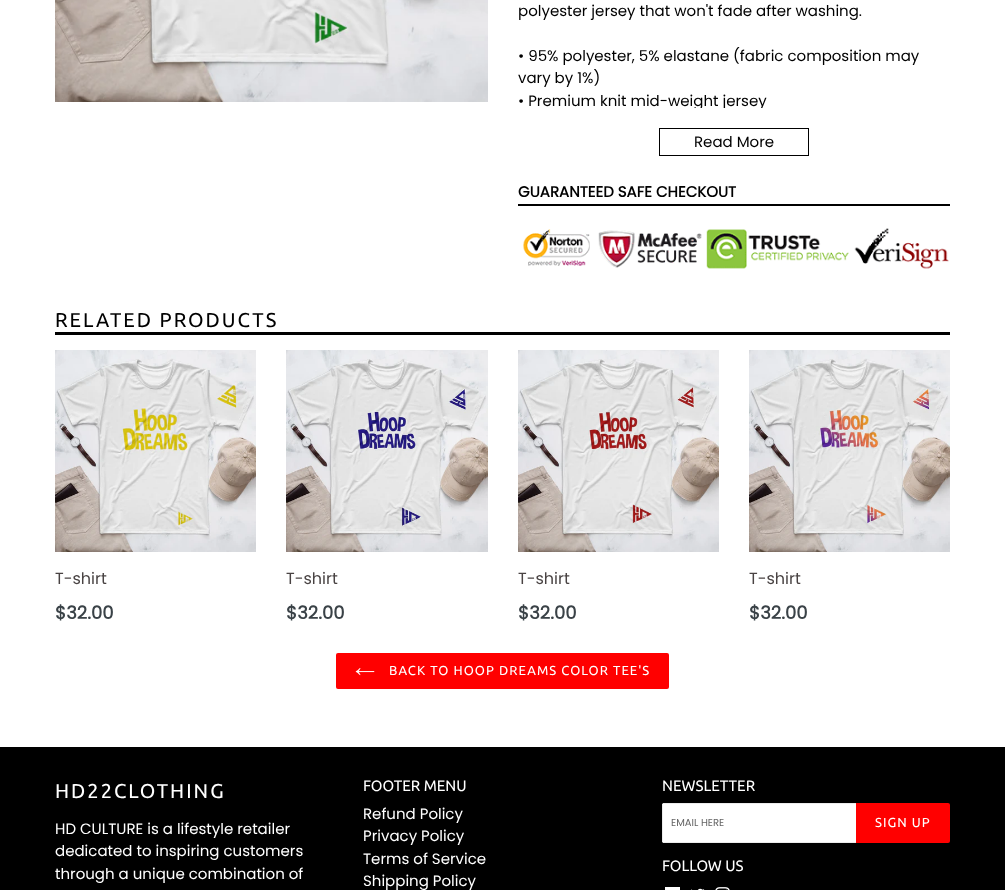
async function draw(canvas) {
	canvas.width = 1005;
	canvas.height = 890;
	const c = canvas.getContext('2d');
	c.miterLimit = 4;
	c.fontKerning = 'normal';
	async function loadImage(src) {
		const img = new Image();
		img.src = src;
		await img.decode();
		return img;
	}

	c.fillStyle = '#fff';
	c.fillRect(0, 0, 1005, 890);
	c.drawImage(await loadImage('img1.png'), 55, 0, 433, 102);
	c.font = '15px Poppins';
	c.fillStyle = '#000';
	for (const [text, x, y] of [
		['polyester jersey that won\'t fade after washing.', 518, 16],
		['• 95% polyester, 5% elastane (fabric composition may', 518, 61],
		['vary by 1%)', 518, 83],
	]) {
		c.fillText(text, x, y);
	}
	c.save();
	c.beginPath();
	c.rect(518, 0, 432, 108);
	c.clip();
	c.fillText('• Premium knit mid-weight jersey', 518, 106);
	c.restore();
	c.strokeStyle = '#000';
	c.strokeRect(659.5, 128.5, 149, 27);
	c.fillText('Read More', 694, 147);
	c.fillRect(518, 204, 432, 2);
	c.font = 'bold 15px Poppins';
	c.fillText('GUARANTEED SAFE CHECKOUT', 518, 197);
	c.drawImage(await loadImage('img2.png'), 523, 228, 426, 41);
	c.fillRect(55, 332, 895, 3);
	c.letterSpacing = '2px';
	c.font = '20px Ubuntu';
	c.fillText('RELATED PRODUCTS', 55, 327);
	c.drawImage(await loadImage('img3.png'), 55, 350, 201, 202);
	c.letterSpacing = '0px';
	c.font = '16px Poppins';
	c.fillStyle = '#494343';
	c.fillText('T-shirt', 55, 584);
	c.font = 'bold 18px Poppins';
	c.fillStyle = '#3a4247';
	c.fillText('$32.00', 55, 619);
	c.drawImage(await loadImage('img4.png'), 286, 350, 202, 202);
	c.font = '16px Poppins';
	c.fillStyle = '#494343';
	c.fillText('T-shirt', 286, 584);
	c.font = 'bold 18px Poppins';
	c.fillStyle = '#3a4247';
	c.fillText('$32.00', 286, 619);
	c.drawImage(await loadImage('img5.png'), 518, 350, 201, 202);
	c.font = '16px Poppins';
	c.fillStyle = '#494343';
	c.fillText('T-shirt', 518, 584);
	c.font = 'bold 18px Poppins';
	c.fillStyle = '#3a4247';
	c.fillText('$32.00', 518, 619);
	c.drawImage(await loadImage('img6.png'), 749, 350, 201, 202);
	c.font = '16px Poppins';
	c.fillStyle = '#494343';
	c.fillText('T-shirt', 749, 584);
	c.font = 'bold 18px Poppins';
	c.fillStyle = '#3a4247';
	c.fillText('$32.00', 749, 619);
	c.fillStyle = '#f00';
	c.beginPath();
	c.roundRect(336, 653, 333, 36, 2);
	c.fill();
	c.drawImage(await loadImage('img7.png'), 355, 668, 20, 8);
	c.letterSpacing = '1.05px';
	c.font = '13px Ubuntu';
	c.fillStyle = '#fff';
	c.fillText('BACK TO HOOP DREAMS COLOR TEE\'S', 389, 675);
	c.fillStyle = '#000';
	c.fillRect(0, 747, 1005, 143);
	c.letterSpacing = '2px';
	c.font = '20px Ubuntu';
	c.fillStyle = '#fff';
	c.fillText('HD22CLOTHING', 55, 798);
	c.letterSpacing = '0px';
	c.font = '15px Poppins';
	for (const [text, x, y] of [
		['HD CULTURE is a lifestyle retailer', 55, 834],
		['dedicated to inspiring customers', 55, 856],
		['through a unique combination of', 55, 879],
	]) {
		c.fillText(text, x, y);
	}
	c.font = '15px Ubuntu';
	c.fillText('FOOTER MENU', 363, 791);
	c.font = '15px Poppins';
	for (const [text, x, y] of [
		['Refund Policy', 363, 819],
		['Privacy Policy', 363, 841],
		['Terms of Service', 363, 864],
		['Shipping Policy', 363, 886],
	]) {
		c.fillText(text, x, y);
	}
	c.font = '15px Ubuntu';
	c.fillText('NEWSLETTER', 662, 791);
	c.beginPath();
	c.roundRect(662, 803, 194, 40, [2, 0, 0, 2]);
	c.fill();
	for (const [x, y, w, h, color] of [
		[663, 803, 193, 1, '#ebebeb'],
		[663, 842, 193, 1, '#ebebeb'],
		[662, 804, 1, 38, '#ebebeb'],
	]) {
		c.fillStyle = color;
		c.fillRect(x, y, w, h);
	}
	c.font = '10px Poppins';
	c.fillStyle = '#666';
	c.fillText('EMAIL HERE', 671, 826);
	c.fillStyle = '#f00';
	c.beginPath();
	c.roundRect(856, 803, 94, 40, [0, 2, 2, 0]);
	c.fill();
	c.letterSpacing = '1.05px';
	c.font = '13px Ubuntu';
	c.fillStyle = '#fff';
	c.fillText('SIGN UP', 875, 827);
	c.letterSpacing = '0px';
	c.font = '15px Ubuntu';
	c.fillText('FOLLOW US', 662, 871);
	c.fillRect(665, 887, 15, 3);
	c.drawImage(await loadImage('img8.png'), 691, 888, 14, 2);
	c.drawImage(await loadImage('img9.png'), 715, 887, 15, 3);
}

draw(document.querySelector('canvas'));
